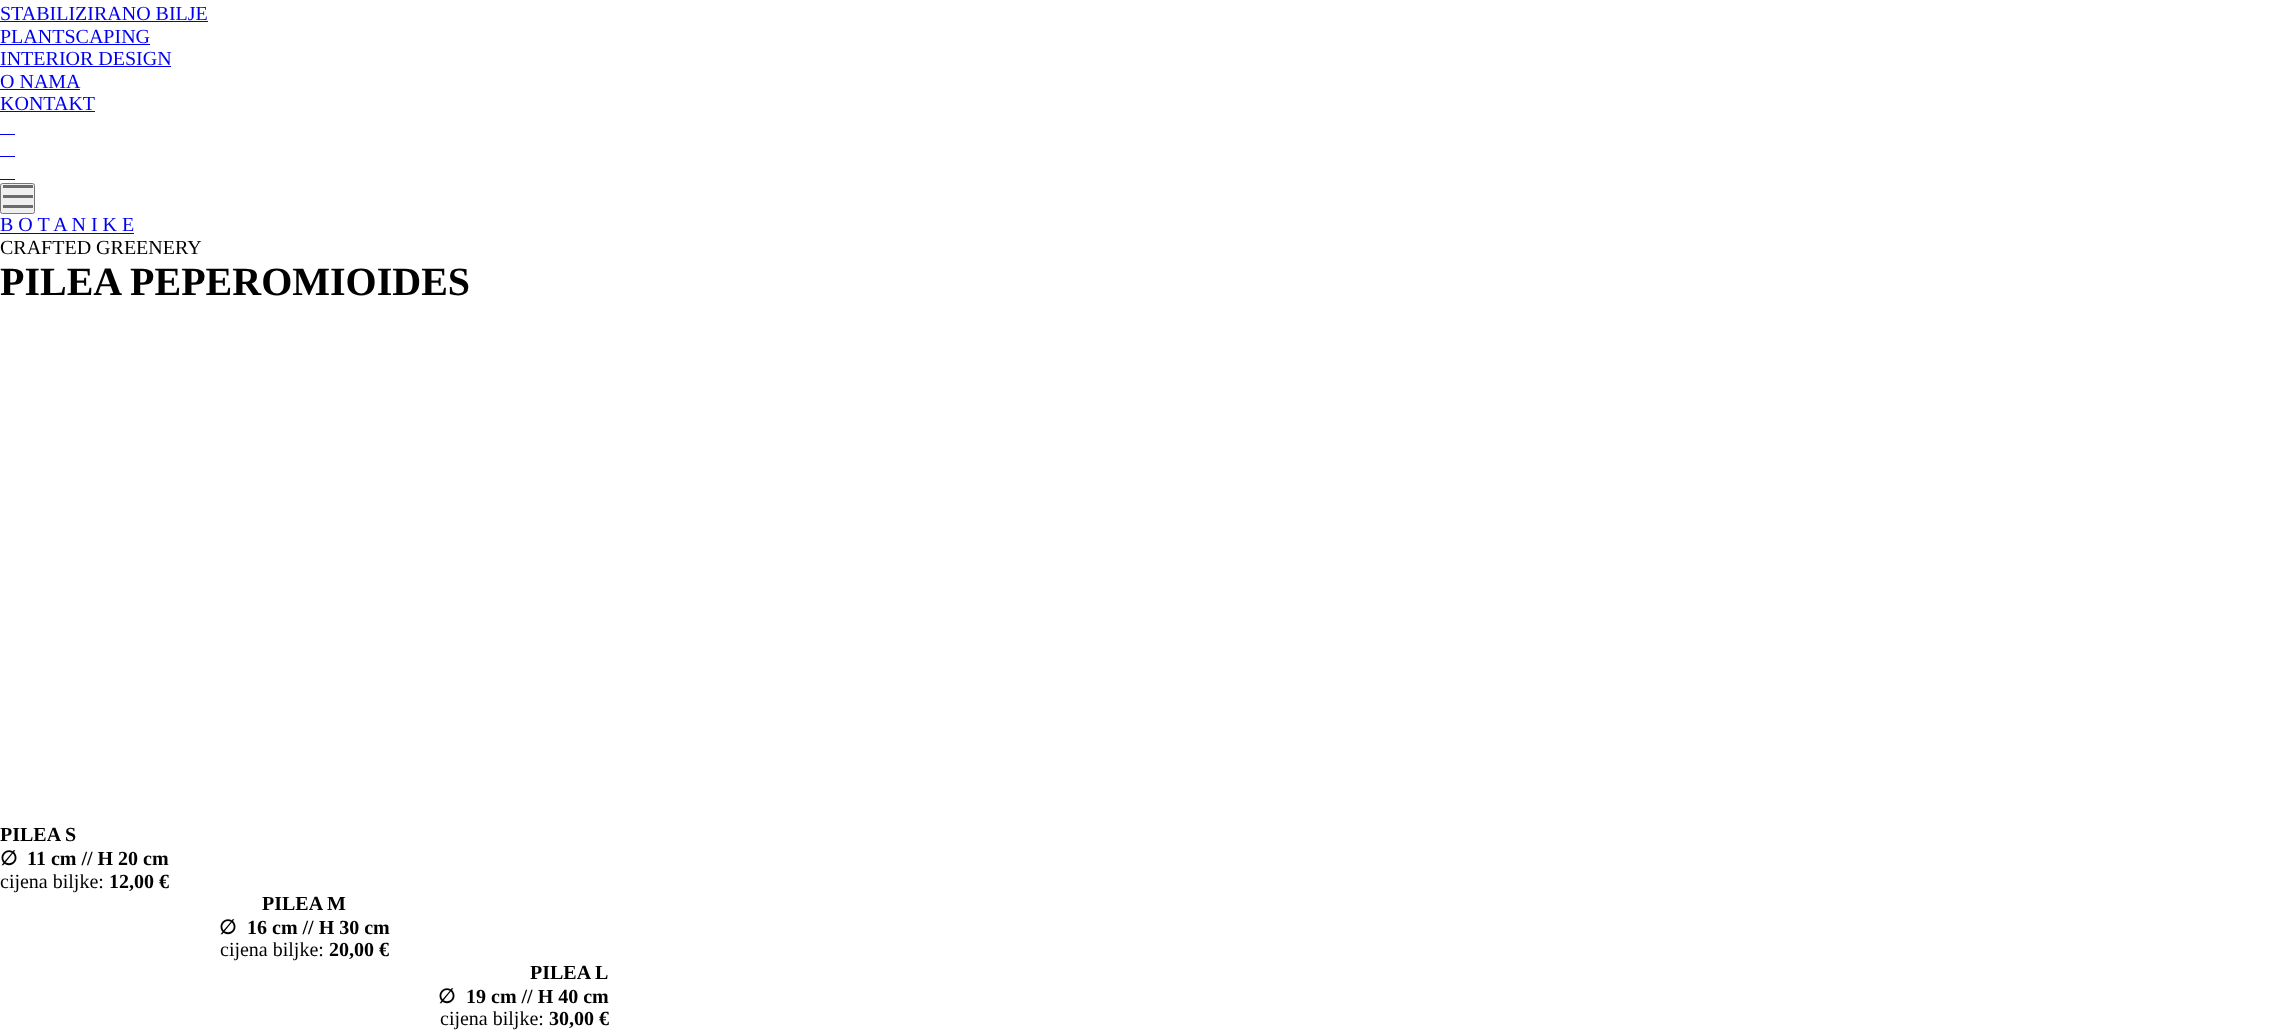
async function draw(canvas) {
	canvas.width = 2269;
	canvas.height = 1036;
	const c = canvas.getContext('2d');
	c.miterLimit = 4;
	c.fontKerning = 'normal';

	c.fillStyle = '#fff';
	c.fillRect(0, 0, 2269, 1036);
	c.font = '20px Liberation Serif';
	c.fillStyle = '#00e';
	c.fillText('STABILIZIRANO BILJE', 0, 20);
	c.fillRect(0, 21, 208, 1);
	c.fillText('PLANTSCAPING', 0, 43);
	c.fillRect(0, 44, 150, 1);
	c.fillText('INTERIOR DESIGN', 0, 65);
	c.fillRect(0, 66, 171, 1);
	c.fillText('O NAMA', 0, 88);
	c.fillRect(0, 89, 80, 1);
	c.fillText('KONTAKT', 0, 110);
	for (const [x, y, w, h, color] of [
		[0, 111, 95, 1, '#00e'],
		[0, 134, 15, 1, '#00e'],
		[0, 156, 15, 1, '#00e'],
		[0, 179, 15, 1, '#00e'],
	]) {
		c.fillStyle = color;
		c.fillRect(x, y, w, h);
	}
	c.fillStyle = '#efefef';
	c.beginPath();
	c.roundRect(0.5, 183.5, 34, 30, 2);
	c.fill();
	c.strokeStyle = '#767676';
	c.stroke();
	for (const [x, y, w, h, color] of [
		[3, 185, 30, 3, '#6b6b6b'],
		[3, 195, 30, 3, '#6b6b6b'],
		[3, 205, 30, 3, '#6b6b6b'],
	]) {
		c.fillStyle = color;
		c.fillRect(x, y, w, h);
	}
	c.fillStyle = '#00e';
	c.fillText('B O T A N I K E', 0, 231);
	c.fillRect(0, 233, 134, 1);
	c.fillStyle = '#000';
	c.fillText('CRAFTED GREENERY', 0, 254);
	c.font = 'bold 40px Liberation Serif';
	c.fillText('PILEA PEPEROMIOIDES', 0, 295);
	c.font = 'bold 20px Liberation Serif';
	c.fillText('PILEA S', 0, 841);
	c.font = 'bold 20px DejaVu Sans';
	c.fillText('∅', 0, 865);
	c.font = 'bold 20px Liberation Serif';
	c.fillText('11 cm // H 20 cm', 27, 865);
	c.font = '20px Liberation Serif';
	c.fillText('cijena biljke:', 0, 888);
	c.font = 'bold 20px Liberation Serif';
	c.fillText('12,00 €', 109, 888);
	c.fillText('PILEA M', 262, 910);
	c.font = 'bold 20px DejaVu Sans';
	c.fillText('∅', 219, 934);
	c.font = 'bold 20px Liberation Serif';
	c.fillText('16 cm // H 30 cm', 247, 934);
	c.font = '20px Liberation Serif';
	c.fillText('cijena biljke:', 220, 956);
	c.font = 'bold 20px Liberation Serif';
	c.fillText('20,00 €', 329, 956);
	c.fillText('PILEA L', 530, 979);
	c.font = 'bold 20px DejaVu Sans';
	c.fillText('∅', 438, 1003);
	c.font = 'bold 20px Liberation Serif';
	c.fillText('19 cm // H 40 cm', 466, 1003);
	c.font = '20px Liberation Serif';
	c.fillText('cijena biljke:', 440, 1025);
	c.font = 'bold 20px Liberation Serif';
	c.fillText('30,00 €', 549, 1025);
}

draw(document.querySelector('canvas'));
